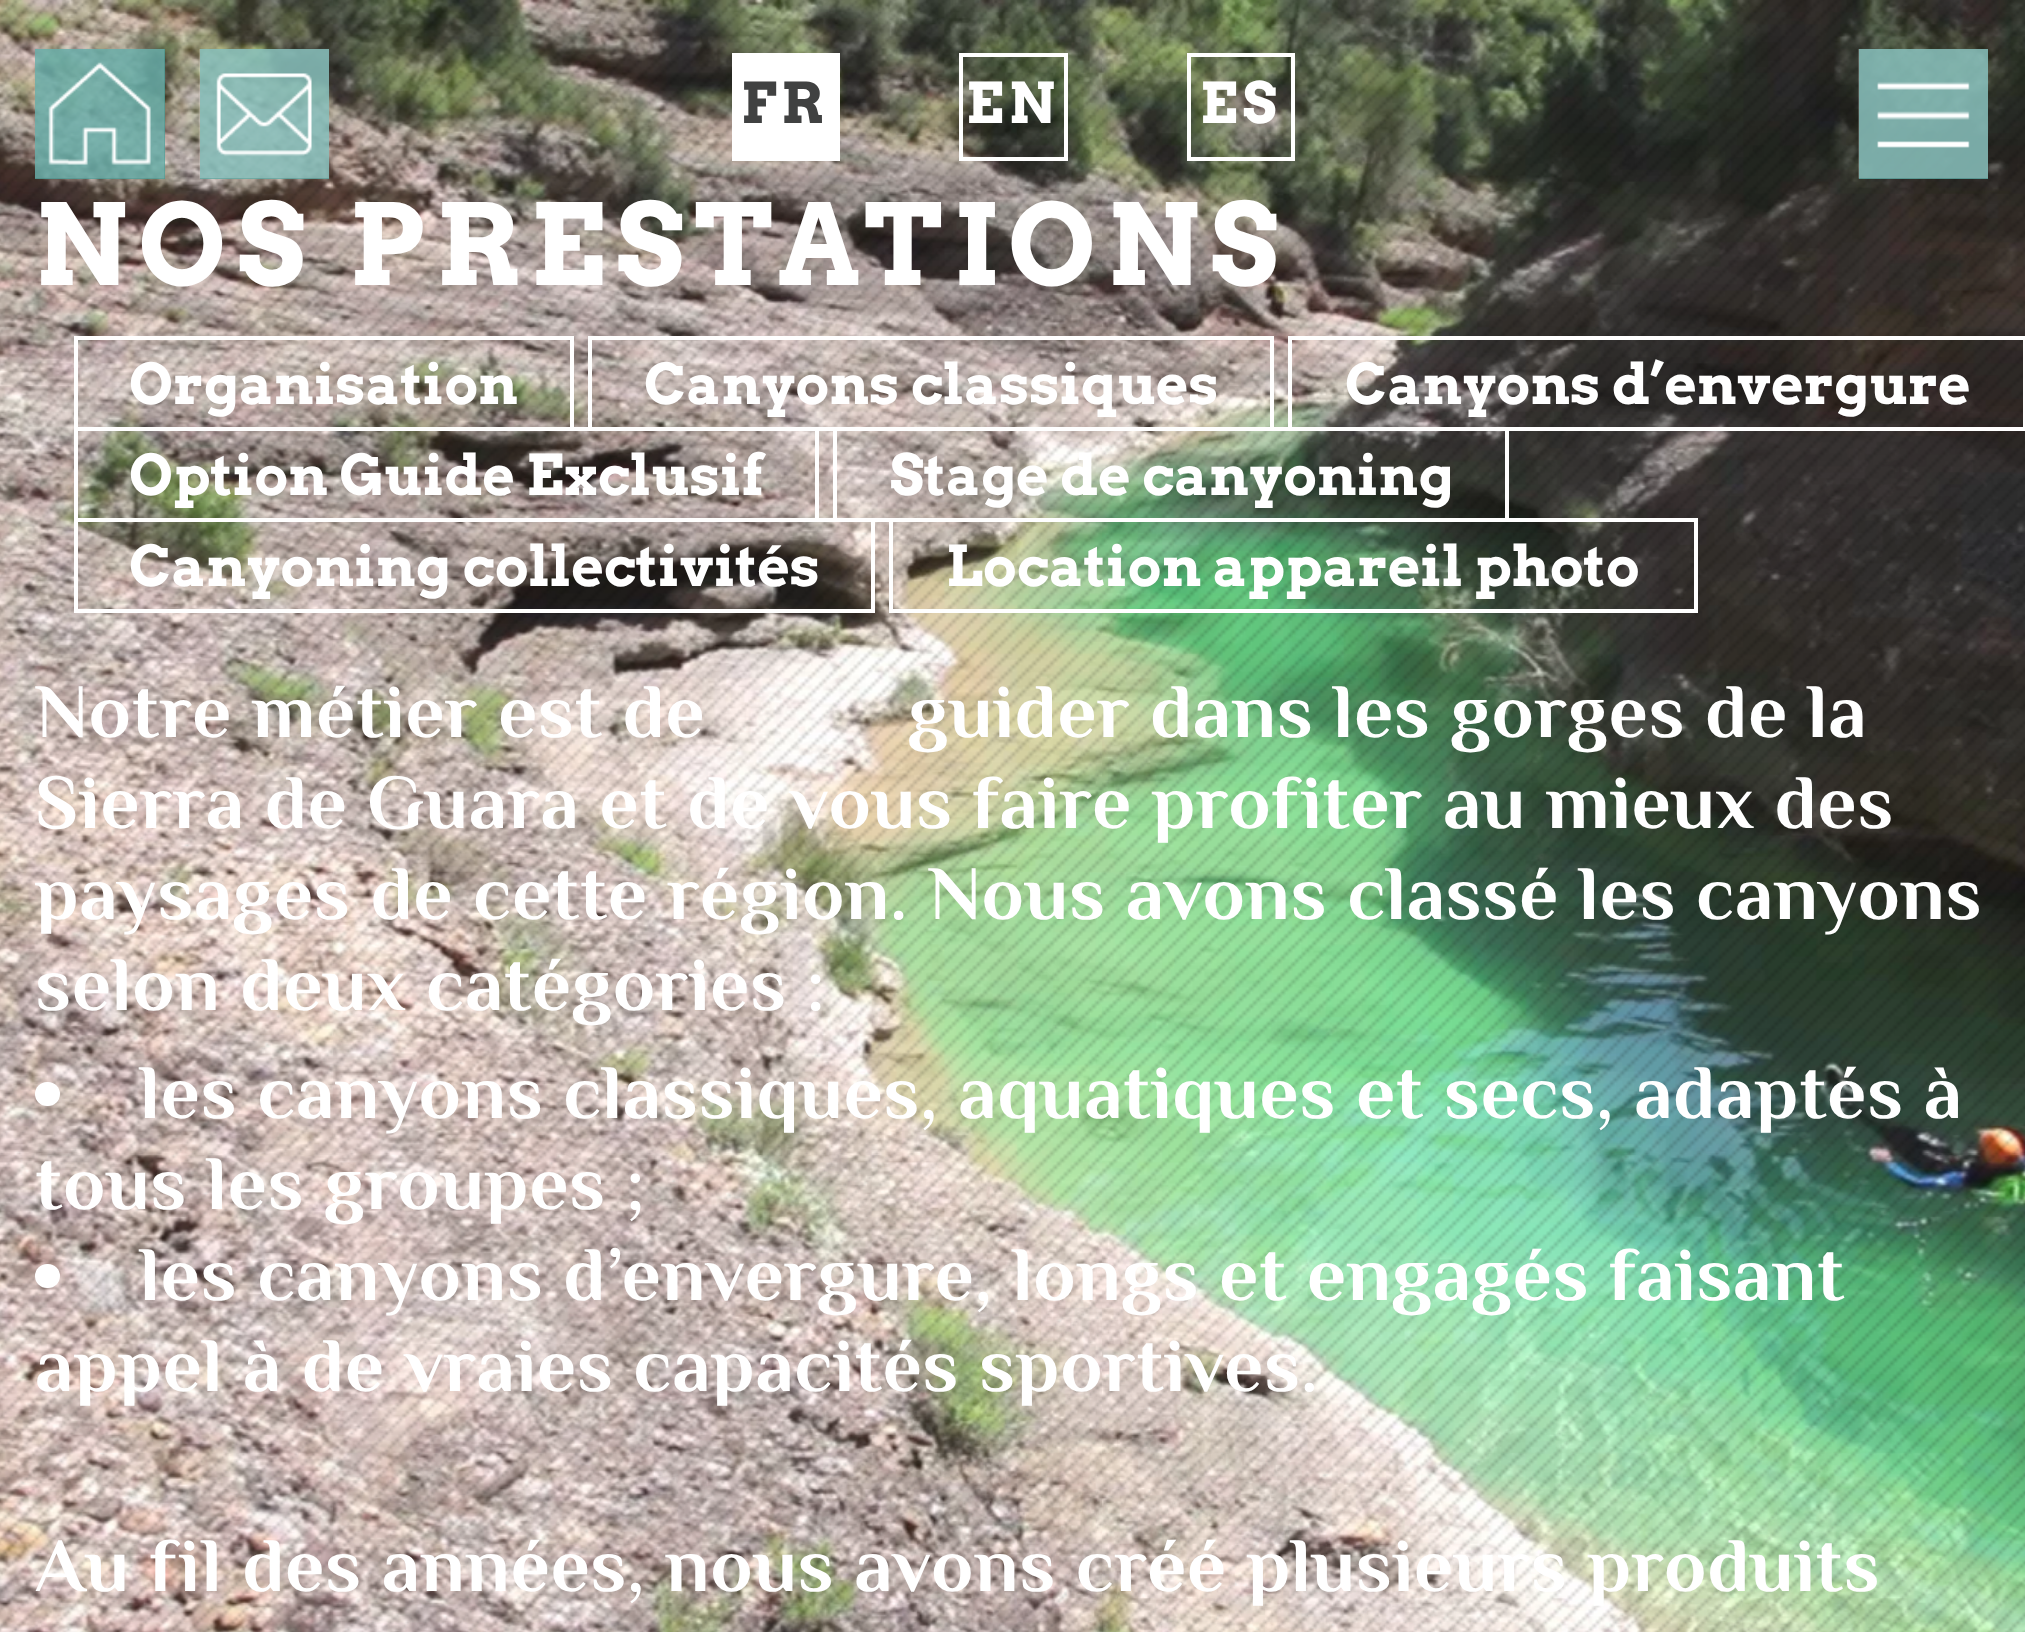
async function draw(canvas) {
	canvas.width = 2025;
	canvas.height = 1632;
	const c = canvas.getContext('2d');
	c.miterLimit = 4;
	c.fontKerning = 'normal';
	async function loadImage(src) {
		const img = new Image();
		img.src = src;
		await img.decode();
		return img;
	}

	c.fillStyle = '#fff';
	c.fillRect(0, 0, 2025, 1632);
	c.drawImage(await loadImage('img1.png'), 0, 0, 2025, 1632);
	c.drawImage(await loadImage('img2.png'), 0, 0, 2025, 1632);
	c.fillStyle = '#3b9690cc';
	c.fillRect(35, 49, 130, 130);
	c.drawImage(await loadImage('img3.png'), 35, 49, 130, 130);
	c.fillRect(200, 49, 129, 130);
	c.drawImage(await loadImage('img4.png'), 199, 49, 130, 130);
	c.fillRect(1859, 49, 129, 130);
	c.drawImage(await loadImage('img5.png'), 1858, 49, 130, 130);
	c.fillStyle = '#fff';
	c.fillRect(732, 53, 108, 108);
	c.letterSpacing = '5px';
	c.font = 'bold 56px Arvo';
	c.fillStyle = '#404141';
	c.fillText('FR', 741, 123);
	c.strokeStyle = '#fff';
	c.lineWidth = 4;
	c.strokeRect(961, 55, 105, 104);
	c.fillStyle = '#fff';
	c.fillText('EN', 966, 123);
	c.strokeRect(1189, 55, 104, 104);
	c.fillText('ES', 1200, 123);
	c.letterSpacing = '10.5px';
	c.font = 'bold 112px Arvo';
	c.fillText('NOS PRESTATIONS', 35, 285);
	c.strokeRect(76, 338, 496, 91);
	c.letterSpacing = '0px';
	c.font = 'bold 56px Arvo';
	c.fillText('Organisation', 129, 404);
	c.strokeRect(590, 338, 682, 91);
	c.fillText('Canyons classiques', 644, 404);
	c.strokeRect(1290, 338, 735, 91);
	c.fillText('Canyons d’envergure', 1345, 404);
	c.strokeRect(76, 429, 741, 91);
	c.fillText('Option Guide Exclusif', 129, 495);
	c.strokeRect(835, 429, 672, 91);
	c.fillText('Stage de canyoning', 890, 495);
	c.strokeRect(76, 520, 797, 91);
	c.fillText('Canyoning collectivités', 129, 586);
	c.strokeRect(891, 520, 805, 91);
	c.fillText('Location appareil photo', 946, 586);
	c.letterSpacing = '0.7px';
	c.font = 'bold 77px Philosopher';
	for (const [text, x, y] of [
		['Notre métier est de', 35, 737],
		['guider dans les gorges de la', 908, 737],
		['Sierra de Guara et de vous faire profiter au mieux des', 35, 828],
		['paysages de cette région. Nous avons classé les canyons', 35, 919],
		['selon deux catégories :', 35, 1010],
	]) {
		c.fillText(text, x, y);
	}
	c.beginPath();
	c.roundRect(35, 1082, 25, 24, 12);
	c.fill();
	c.fillText('les canyons classiques, aquatiques et secs, adaptés à', 140, 1118);
	c.fillText('tous les groupes ;', 35, 1209);
	c.beginPath();
	c.roundRect(35, 1264, 25, 24, 12);
	c.fill();
	for (const [text, x, y] of [
		['les canyons d’envergure, longs et engagés faisant', 140, 1300],
		['appel à de vraies capacités sportives.', 35, 1391],
		['Au fil des années, nous avons créé plusieurs produits', 35, 1591],
	]) {
		c.fillText(text, x, y);
	}
}

draw(document.querySelector('canvas'));
